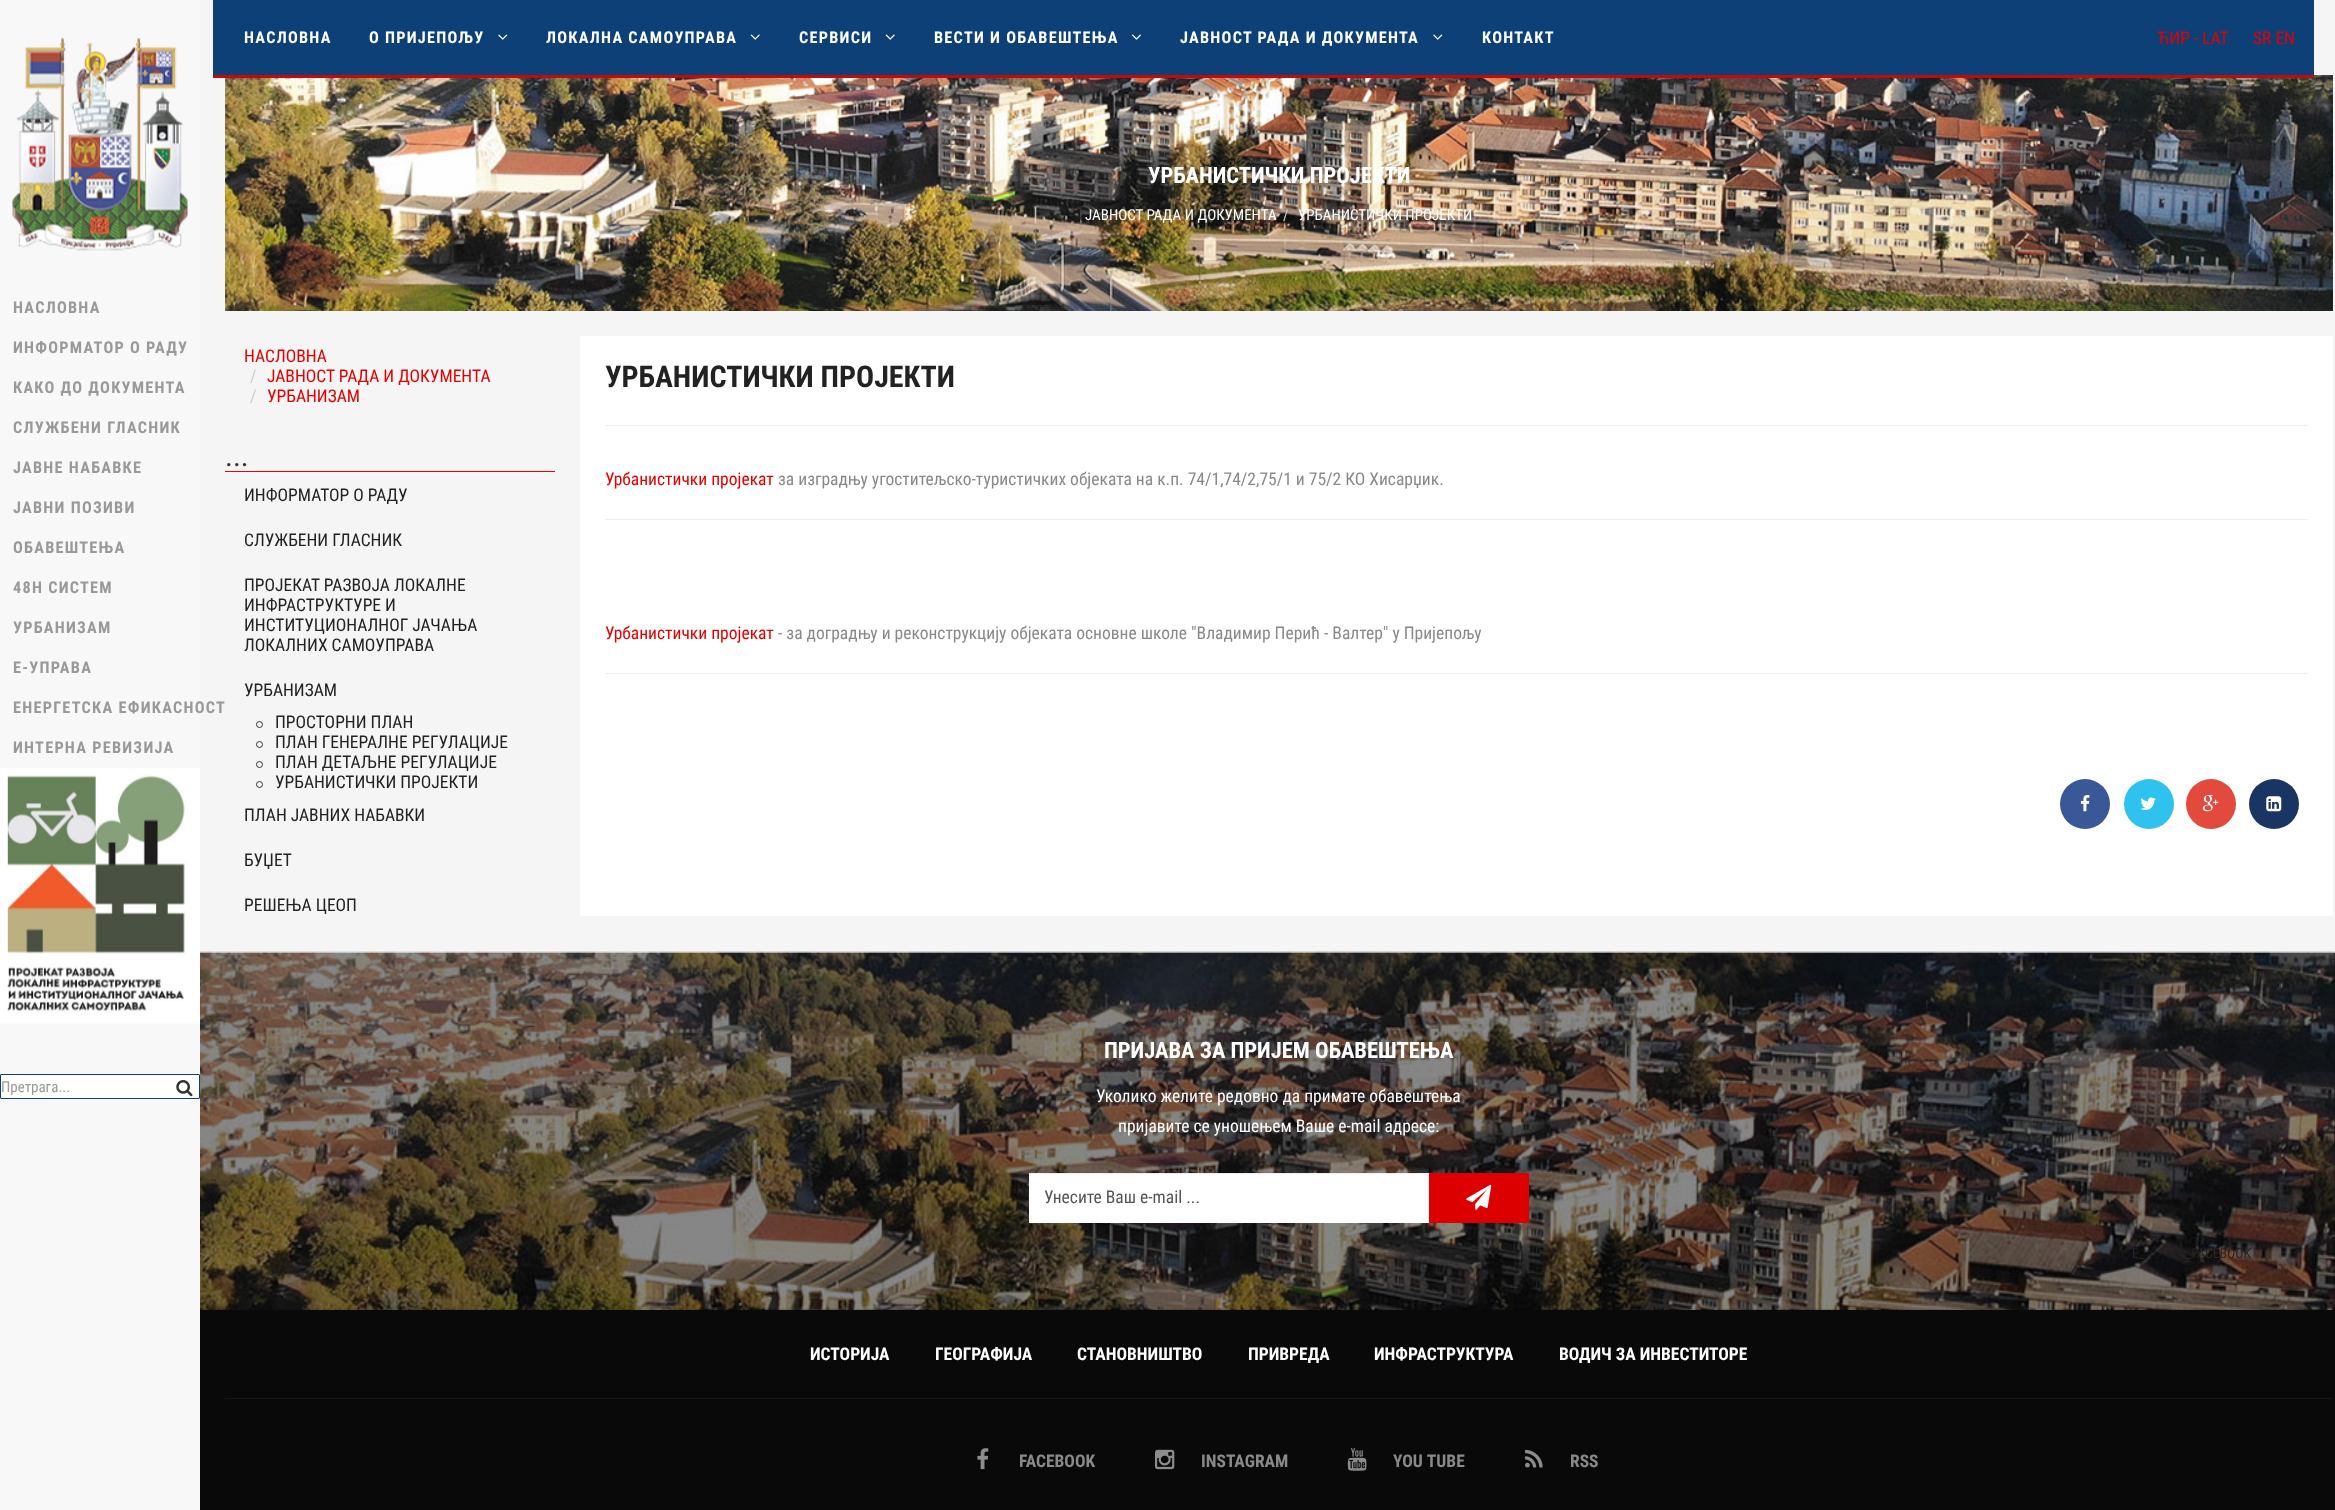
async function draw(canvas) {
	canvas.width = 2335;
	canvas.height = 1510;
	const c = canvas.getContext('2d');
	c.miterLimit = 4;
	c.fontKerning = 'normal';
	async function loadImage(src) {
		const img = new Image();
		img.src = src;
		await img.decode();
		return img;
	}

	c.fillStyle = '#f5f5f5';
	c.fillRect(0, 0, 2335, 1510);
	c.fillStyle = '#0d4077';
	c.fillRect(213, 0, 2101, 75);
	c.drawImage(await loadImage('img4.png'), 225, 75, 2108, 236);
	c.fillStyle = '#c10a0a';
	c.fillRect(213, 75, 2101, 3);
	c.letterSpacing = '1.25px';
	c.font = 'bold 16.25px Roboto Condensed';
	c.fillStyle = '#fff';
	c.fillText('НАСЛОВНА', 244, 43);
	c.fillText('О ПРИЈЕПОЉУ', 369, 43);
	c.drawImage(await loadImage('img1.png'), 498, 34, 10, 6);
	c.fillText('ЛОКАЛНА САМОУПРАВА', 546, 43);
	c.drawImage(await loadImage('img2.png'), 750, 34, 10, 6);
	c.fillText('СЕРВИСИ', 799, 43);
	c.drawImage(await loadImage('img2.png'), 885, 34, 10, 6);
	c.fillText('ВЕСТИ И ОБАВЕШТЕЊА', 934, 43);
	c.drawImage(await loadImage('img3.png'), 1132, 34, 9, 6);
	c.fillText('ЈАВНОСТ РАДА И ДОКУМЕНТА', 1180, 43);
	c.drawImage(await loadImage('img1.png'), 1433, 34, 10, 6);
	c.fillText('КОНТАКТ', 1482, 43);
	c.letterSpacing = '0px';
	c.font = '17.5px Roboto Condensed';
	c.fillStyle = '#e40000';
	c.fillText('ЋИР - LАТ', 2157, 44);
	c.fillText('SR EN', 2253, 44);
	c.font = 'bold 22.5px Roboto Condensed';
	c.fillStyle = '#fff';
	c.fillText('УРБАНИСТИЧКИ ПРОЈЕКТИ', 1148, 183);
	c.font = '15px Roboto Condensed';
	c.fillText('ЈАВНОСТ РАДА И ДОКУМЕНТА', 1085, 220);
	c.fillStyle = '#ccc';
	c.fillText('/', 1283, 220);
	c.fillStyle = '#fff';
	c.fillText('УРБАНИСТИЧКИ ПРОЈЕКТИ', 1298, 220);
	c.fillStyle = '#f8f8f8';
	c.fillRect(0, 0, 200, 1510);
	c.drawImage(await loadImage('img5.png'), 12, 38, 176, 213);
	c.letterSpacing = '1.25px';
	c.font = 'bold 16.25px Roboto Condensed';
	c.fillStyle = '#999';
	for (const [text, x, y] of [
		['НАСЛОВНА', 13, 313],
		['ИНФОРМАТОР О РАДУ', 13, 353],
		['КАКО ДО ДОКУМЕНТА', 13, 393],
		['СЛУЖБЕНИ ГЛАСНИК', 13, 433],
		['ЈАВНЕ НАБАВКЕ', 13, 473],
		['ЈАВНИ ПОЗИВИ', 13, 513],
		['ОБАВЕШТЕЊА', 13, 553],
		['48H СИСТЕМ', 13, 593],
		['УРБАНИЗАМ', 13, 633],
		['Е-УПРАВА', 13, 673],
		['ЕНЕРГЕТСКА ЕФИКАСНОСТ', 13, 713],
		['ИНТЕРНА РЕВИЗИЈА', 13, 753],
	]) {
		c.fillText(text, x, y);
	}
	c.drawImage(await loadImage('img6.png'), 0, 768, 200, 256);
	c.fillStyle = '#fff';
	c.beginPath();
	c.roundRect(0.5, 1074.5, 199, 24, 0.5);
	c.fill();
	c.strokeStyle = '#0d4077';
	c.stroke();
	c.letterSpacing = '0px';
	c.font = '15px Roboto Condensed';
	c.fillStyle = '#999';
	c.fillText('Претрага...', 1, 1092);
	c.drawImage(await loadImage('img7.png'), 176, 1080, 17, 17);
	c.font = '17.5px Roboto Condensed';
	c.fillStyle = '#e40000';
	c.fillText('НАСЛОВНА', 244, 362);
	c.fillStyle = '#ccc';
	c.fillText('/', 250, 382);
	c.fillStyle = '#e40000';
	c.fillText('ЈАВНОСТ РАДА И ДОКУМЕНТА', 267, 382);
	c.fillStyle = '#ccc';
	c.fillText('/', 250, 402);
	c.fillStyle = '#e40000';
	c.fillText('УРБАНИЗАМ', 267, 402);
	c.fillStyle = '#e80404';
	c.fillRect(225, 471, 330, 1);
	c.font = '30px Roboto Condensed';
	c.fillStyle = '#333';
	c.fillText('...', 225, 466);
	c.font = '17.5px Roboto Condensed';
	c.fillStyle = '#222';
	for (const [text, x, y] of [
		['ИНФОРМАТОР О РАДУ', 244, 501],
		['СЛУЖБЕНИ ГЛАСНИК', 244, 546],
		['ПРОЈЕКАТ РАЗВОЈА ЛОКАЛНЕ', 244, 591],
		['ИНФРАСТРУКТУРЕ И', 244, 611],
		['ИНСТИТУЦИОНАЛНОГ ЈАЧАЊА', 244, 631],
		['ЛОКАЛНИХ САМОУПРАВА', 244, 651],
		['УРБАНИЗАМ', 244, 696],
	]) {
		c.fillText(text, x, y);
	}
	c.beginPath();
	c.arc(259.5, 724.5, 3, 0, 2 * Math.PI);
	c.strokeStyle = '#333';
	c.stroke();
	c.fillText('ПРОСТОРНИ ПЛАН', 275, 728);
	c.beginPath();
	c.arc(259.5, 744.5, 3, 0, 2 * Math.PI);
	c.stroke();
	c.fillText('ПЛАН ГЕНЕРАЛНЕ РЕГУЛАЦИЈЕ', 275, 748);
	c.beginPath();
	c.arc(259.5, 764.5, 3, 0, 2 * Math.PI);
	c.stroke();
	c.fillText('ПЛАН ДЕТАЉНЕ РЕГУЛАЦИЈЕ', 275, 768);
	c.beginPath();
	c.arc(259.5, 784.5, 3, 0, 2 * Math.PI);
	c.stroke();
	for (const [text, x, y] of [
		['УРБАНИСТИЧКИ ПРОЈЕКТИ', 275, 788],
		['ПЛАН ЈАВНИХ НАБАВКИ', 244, 821],
		['БУЏЕТ', 244, 866],
		['РЕШЕЊА ЦЕОП', 244, 911],
	]) {
		c.fillText(text, x, y);
	}
	c.fillStyle = '#fff';
	c.fillRect(580, 336, 1753, 580);
	c.fillStyle = '#eee';
	c.fillRect(605, 425, 1703, 1);
	c.font = 'bold 30px Roboto Condensed';
	c.fillStyle = '#222';
	c.fillText('УРБАНИСТИЧКИ ПРОЈЕКТИ', 605, 387);
	c.font = '17.5px Roboto Condensed';
	c.fillStyle = '#e40000';
	c.fillText('Урбанистички пројекат', 605, 485);
	c.fillStyle = '#898989';
	c.fillText('за изградњу угоститељско-туристичких објеката на к.п. 74/1,74/2,75/1 и 75/2 КО Хисарџик.', 778, 485);
	c.fillStyle = '#eee';
	c.fillRect(605, 519, 1703, 1);
	c.fillStyle = '#e40000';
	c.fillText('Урбанистички пројекат', 605, 639);
	c.fillStyle = '#898989';
	c.fillText('- за доградњу и реконструкцију објеката основне школе "Владимир Перић - Валтер" у Пријепољу', 778, 639);
	c.fillStyle = '#eee';
	c.fillRect(605, 673, 1703, 1);
	c.fillStyle = '#3a5897';
	c.beginPath();
	c.arc(2085, 804, 25, 0, 2 * Math.PI);
	c.fill();
	c.drawImage(await loadImage('img8.png'), 2080, 795, 10, 17);
	c.fillStyle = '#2fc2ee';
	c.beginPath();
	c.arc(2149, 804, 25, 0, 2 * Math.PI);
	c.fill();
	c.drawImage(await loadImage('img9.png'), 2140, 797, 16, 13);
	c.fillStyle = '#e14a3c';
	c.beginPath();
	c.arc(2211, 804, 25, 0, 2 * Math.PI);
	c.fill();
	c.drawImage(await loadImage('img10.png'), 2202, 795, 17, 17);
	c.fillStyle = '#1a3562';
	c.beginPath();
	c.arc(2274, 804, 25, 0, 2 * Math.PI);
	c.fill();
	c.drawImage(await loadImage('img11.png'), 2266, 796, 16, 16);
	c.fillStyle = '#090909';
	c.fillRect(200, 953, 2135, 557);
	c.drawImage(await loadImage('img12.png'), 200, 951, 2135, 359);
	c.font = 'bold 22.5px Roboto Condensed';
	c.fillStyle = '#fff';
	c.fillText('ПРИЈАВА ЗА ПРИЈЕМ ОБАВЕШТЕЊА', 1104, 1058);
	c.font = '17.5px Roboto Condensed';
	c.fillText('Уколико желите редовно да примате обавештења', 1096, 1102);
	c.fillText('пријавите се уношењем Ваше e-mail адресе:', 1118, 1132);
	c.fillRect(1029, 1174, 400, 49);
	c.fillStyle = '#ececec';
	c.fillRect(1029, 1173, 400, 1);
	c.fillStyle = '#555';
	c.fillText('Унесите Ваш е-mail ...', 1044, 1203);
	c.fillStyle = '#d00';
	c.fillRect(1429, 1173, 100, 50);
	c.drawImage(await loadImage('img13.png'), 1466, 1184, 26, 26);
	c.font = 'bold 17.5px Roboto Condensed';
	c.fillStyle = '#fff';
	for (const [text, x, y] of [
		['ИСТОРИЈА', 810, 1360],
		['ГЕОГРАФИЈА', 935, 1360],
		['СТАНОВНИШТВО', 1077, 1360],
		['ПРИВРЕДА', 1248, 1360],
		['ИНФРАСТРУКТУРА', 1374, 1360],
		['ВОДИЧ ЗА ИНВЕСТИТОРЕ', 1559, 1360],
	]) {
		c.fillText(text, x, y);
	}
	c.fillStyle = '#161616';
	c.fillRect(225, 1398, 2108, 1);
	c.drawImage(await loadImage('img14.png'), 977, 1448, 12, 22);
	c.fillStyle = '#898989';
	c.fillText('FACEBOOK', 1019, 1467);
	c.drawImage(await loadImage('img15.png'), 1155, 1449, 20, 21);
	c.fillText('INSTAGRAM', 1201, 1467);
	c.drawImage(await loadImage('img16.png'), 1347, 1448, 20, 23);
	c.fillText('YOU TUBE', 1393, 1467);
	c.drawImage(await loadImage('img17.png'), 1525, 1449, 18, 19);
	c.fillText('RSS', 1570, 1467);
	c.font = '13.75px Roboto Condensed';
	c.fillStyle = '#292322';
	c.fillText('E_', 2132, 1258);
	c.fillText('_FACEBOOK', 2186, 1258);
}

draw(document.querySelector('canvas'));
